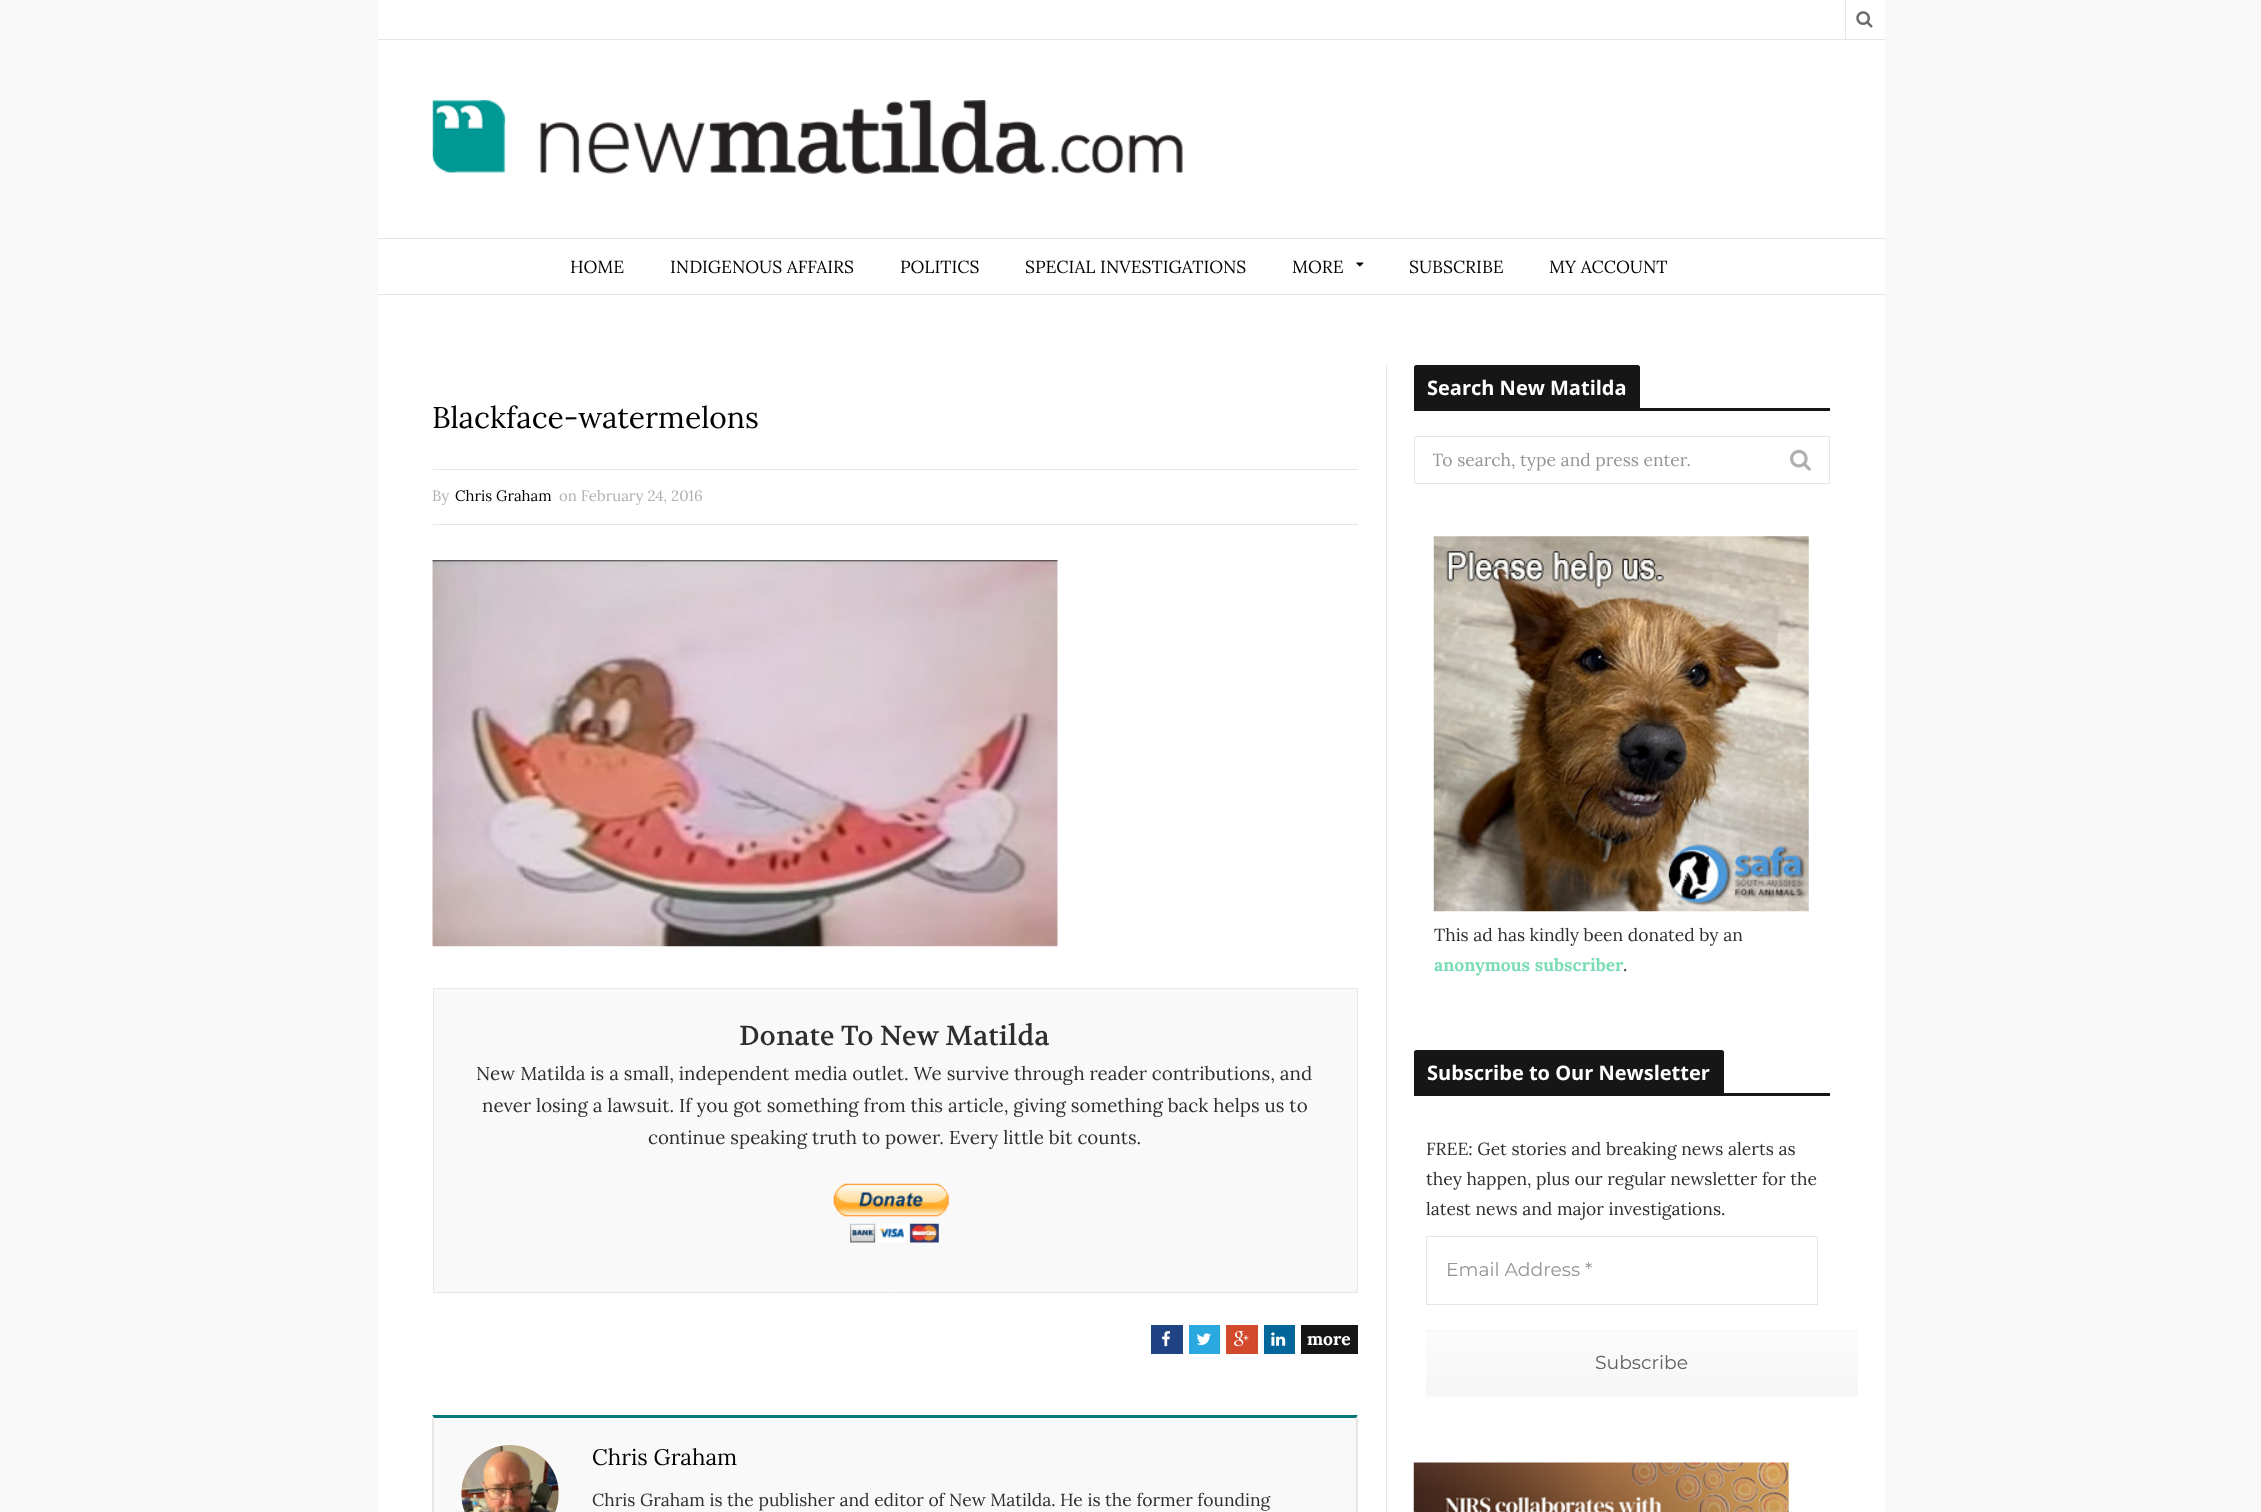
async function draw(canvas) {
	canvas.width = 2261;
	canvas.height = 1512;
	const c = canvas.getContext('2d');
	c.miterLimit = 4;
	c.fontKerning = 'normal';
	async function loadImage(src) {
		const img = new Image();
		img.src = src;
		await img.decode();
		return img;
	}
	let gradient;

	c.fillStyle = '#f9f9f9';
	c.fillRect(0, 0, 2261, 1512);
	c.fillStyle = '#00000040';
	c.filter = 'blur(0.5px)';
	c.beginPath();
	c.rect(378, 0, 1507, 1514);
	c.fill();
	c.filter = 'none';
	for (const [x, y, w, h, color] of [
		[378, 0, 1507, 1512, '#fff'],
		[378, 39, 1507, 1, '#e6e6e6'],
		[1845, 0, 1, 39, '#e6e6e6'],
	]) {
		c.fillStyle = color;
		c.fillRect(x, y, w, h);
	}
	c.drawImage(await loadImage('img1.png'), 1856, 11, 17, 17);
	c.drawImage(await loadImage('img2.png'), 432, 100, 751, 74);
	c.fillRect(378, 238, 1507, 1);
	c.fillRect(378, 294, 1507, 1);
	c.font = '17.5px Lora';
	c.fillStyle = '#010101';
	for (const [text, x, y] of [
		['HOME', 570, 273],
		['INDIGENOUS AFFAIRS', 670, 273],
		['POLITICS', 900, 273],
		['SPECIAL INVESTIGATIONS', 1025, 273],
		['MORE', 1292, 273],
	]) {
		c.fillText(text, x, y);
	}
	c.drawImage(await loadImage('img3.png'), 1356, 262, 8, 5);
	c.fillText('SUBSCRIBE', 1409, 273);
	c.fillText('MY ACCOUNT', 1549, 273);
	c.font = '30px Lora';
	c.fillText('Blackface-watermelons', 432, 428);
	c.fillStyle = '#e6e6e6';
	c.fillRect(433, 469, 925, 1);
	c.fillRect(433, 524, 925, 1);
	c.font = '15px Lora';
	c.fillStyle = '#b0b0b0';
	c.fillText('By', 432, 501);
	c.fillStyle = '#010101';
	c.fillText('Chris Graham', 455, 501);
	c.fillStyle = '#b0b0b0';
	c.fillText('on February 24, 2016', 559, 501);
	c.drawImage(await loadImage('img4.png'), 432, 560, 626, 387);
	c.fillStyle = '#f9f9f9';
	c.beginPath();
	c.rect(433.5, 988.5, 924, 304);
	c.fill();
	c.strokeStyle = '#e6e6e6';
	c.stroke();
	c.font = '27.5px Volkhov';
	c.fillStyle = '#2e2e2e';
	c.fillText('Donate To New Matilda', 739, 1045);
	c.font = '18.75px Lora';
	for (const [text, x, y] of [
		['New Matilda is a small, independent media outlet. We survive through reader contributions, and', 476, 1080],
		['never losing a lawsuit. If you got something from this article, giving something back helps us to', 482, 1112],
		['continue speaking truth to power. Every little bit counts.', 648, 1144],
	]) {
		c.fillText(text, x, y);
	}
	c.drawImage(await loadImage('img5.png'), 833, 1183, 116, 60);
	c.fillStyle = '#204385';
	c.fillRect(1151, 1325, 32, 29);
	c.drawImage(await loadImage('img6.png'), 1162, 1331, 8, 16);
	c.fillStyle = '#2aa9e0';
	c.fillRect(1189, 1325, 31, 29);
	c.drawImage(await loadImage('img7.png'), 1196, 1333, 15, 12);
	c.fillStyle = '#d3492c';
	c.fillRect(1226, 1325, 32, 29);
	c.drawImage(await loadImage('img8.png'), 1234, 1331, 15, 16);
	c.fillStyle = '#02669a';
	c.fillRect(1264, 1325, 31, 29);
	c.drawImage(await loadImage('img9.png'), 1271, 1332, 15, 14);
	c.fillStyle = '#161616';
	c.fillRect(1301, 1325, 57, 29);
	c.font = 'bold 17.5px Lora';
	c.fillStyle = '#fff';
	c.fillText('more', 1307, 1345);
	c.fillStyle = '#f9f9f9';
	c.fillRect(434, 1418, 922, 94);
	c.fillStyle = '#017777';
	c.beginPath();
	c.moveTo(432, 1415);
	c.lineTo(1358, 1415);
	c.lineTo(1356, 1418);
	c.lineTo(434, 1418);
	c.closePath();
	c.fill();
	c.fillStyle = '#e6e6e6';
	c.beginPath();
	c.moveTo(1358, 1415);
	c.lineTo(1358, 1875);
	c.lineTo(1356, 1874);
	c.lineTo(1356, 1418);
	c.closePath();
	c.fill();
	c.beginPath();
	c.moveTo(432, 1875);
	c.lineTo(432, 1415);
	c.lineTo(434, 1418);
	c.lineTo(434, 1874);
	c.closePath();
	c.fill();
	c.drawImage(await loadImage('img10.png'), 461, 1445, 98, 67);
	c.font = '22.5px Lora';
	c.fillStyle = '#010101';
	c.fillText('Chris Graham', 592, 1465);
	c.font = '17.5px Lora';
	c.fillStyle = '#2e2e2e';
	c.fillText('Chris Graham is the publisher and editor of New Matilda. He is the former founding', 592, 1506);
	c.fillStyle = '#e6e6e6';
	c.fillRect(1386, 365, 1, 1147);
	c.fillStyle = '#161616';
	c.fillRect(1414, 408, 416, 3);
	c.beginPath();
	c.roundRect(1414, 365, 226, 45, 2.5);
	c.fill();
	c.font = 'bold 20px Open Sans';
	c.fillStyle = '#fff';
	c.fillText('Search New Matilda', 1427, 395);
	c.strokeRect(1414.5, 436.5, 415, 47);
	c.save();
	c.beginPath();
	c.rect(1433, 449, 361, 22);
	c.clip();
	c.font = '17.5px Lora';
	c.fillStyle = '#959595';
	c.fillText('To search, type and press enter.', 1432, 466);
	c.restore();
	c.drawImage(await loadImage('img11.png'), 1790, 449, 21, 22);
	c.drawImage(await loadImage('img12.png'), 1433, 536, 376, 376);
	c.font = '17.5px Lora';
	c.fillStyle = '#2e2e2e';
	c.fillText('This ad has kindly been donated by an', 1434, 941);
	c.font = 'bold 17.5px Lora';
	c.fillStyle = '#7bdcb5';
	c.fillText('anonymous subscriber', 1434, 971);
	c.font = '17.5px Lora';
	c.fillStyle = '#2e2e2e';
	c.fillText('.', 1623, 971);
	c.fillStyle = '#161616';
	c.fillRect(1414, 1093, 416, 3);
	c.beginPath();
	c.roundRect(1414, 1050, 310, 45, 2.5);
	c.fill();
	c.font = 'bold 20px Open Sans';
	c.fillStyle = '#fff';
	c.fillText('Subscribe to Our Newsletter', 1427, 1080);
	c.font = '17.5px Lora';
	c.fillStyle = '#2e2e2e';
	for (const [text, x, y] of [
		['FREE: Get stories and breaking news alerts as', 1426, 1155],
		['they happen, plus our regular newsletter for the', 1426, 1185],
		['latest news and major investigations.', 1426, 1215],
	]) {
		c.fillText(text, x, y);
	}
	c.strokeRect(1426.5, 1236.5, 391, 68);
	c.font = '18.75px Montserrat';
	c.fillStyle = '#959595';
	c.fillText('Email Address *', 1446, 1276);
	c.fillStyle = '#f6f6f6';
	c.fillRect(1426, 1330, 432, 1);
	gradient = c.createLinearGradient(1642, 1331, 1642, 1396);
	gradient.addColorStop(0, '#fbfbfb');
	gradient.addColorStop(1, '#f6f6f6');
	c.fillStyle = gradient;
	c.fillRect(1426, 1331, 432, 65);
	gradient = c.createLinearGradient(1642, 1396, 1642, 1461);
	gradient.addColorStop(0, '#fbfbfb');
	gradient.addColorStop(1, '#f6f6f6');
	c.fillStyle = gradient;
	c.fillRect(1426, 1396, 432, 2);
	c.fillStyle = '#616161';
	c.fillText('Subscribe', 1595, 1369);
	c.drawImage(await loadImage('img13.png'), 1413, 1462, 376, 50);
}

draw(document.querySelector('canvas'));
